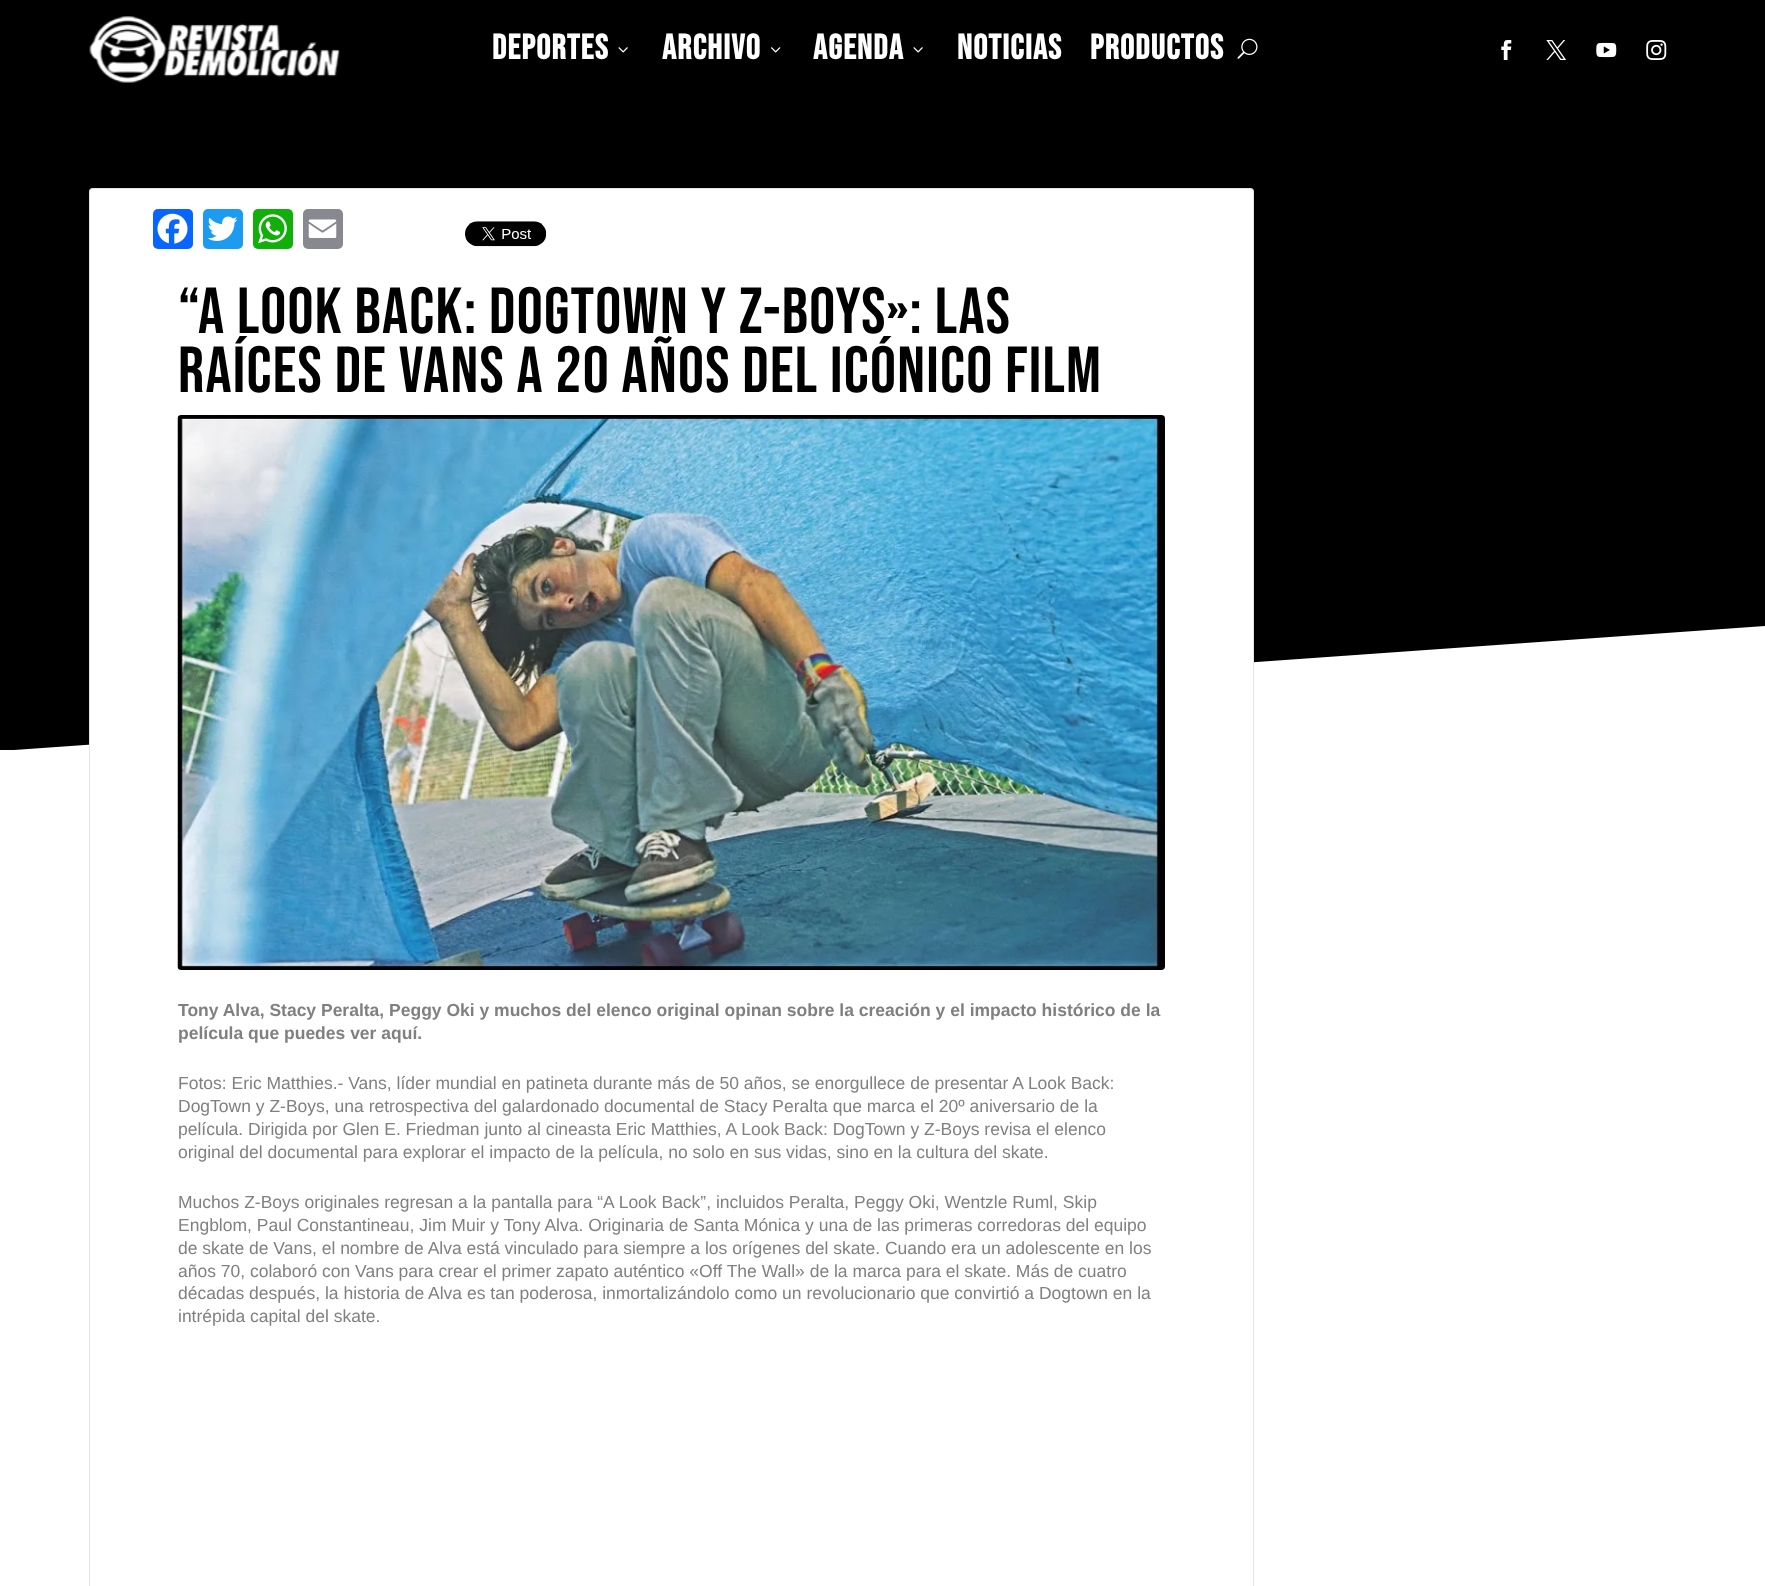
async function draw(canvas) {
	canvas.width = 1765;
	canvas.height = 1586;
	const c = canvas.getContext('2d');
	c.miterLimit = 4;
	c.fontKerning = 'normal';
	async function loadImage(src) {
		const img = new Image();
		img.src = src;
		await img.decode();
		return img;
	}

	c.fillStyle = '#fff';
	c.fillRect(0, 0, 1765, 1586);
	c.fillStyle = '#000';
	c.fillRect(0, 0, 1765, 750);
	c.drawImage(await loadImage('img1.png'), 89, 16, 251, 67);
	c.letterSpacing = '1.25px';
	c.font = 'bold 35px Bebas Neue';
	c.fillStyle = '#fff';
	c.fillText('DEPORTES', 492, 59);
	c.drawImage(await loadImage('img2.png'), 618, 47, 10, 6);
	c.fillText('ARCHIVO', 662, 59);
	c.drawImage(await loadImage('img3.png'), 771, 47, 10, 6);
	c.fillText('AGENDA', 813, 59);
	c.drawImage(await loadImage('img2.png'), 913, 47, 10, 6);
	c.fillText('NOTICIAS', 957, 59);
	c.fillText('PRODUCTOS', 1090, 59);
	c.drawImage(await loadImage('img4.png'), 1237, 38, 21, 21);
	c.drawImage(await loadImage('img5.png'), 1501, 40, 11, 20);
	c.drawImage(await loadImage('img6.png'), 1546, 40, 21, 20);
	c.drawImage(await loadImage('img7.png'), 1596, 42, 21, 16);
	c.drawImage(await loadImage('img8.png'), 1646, 40, 21, 20);
	c.beginPath();
	c.moveTo(1765, 626);
	c.lineTo(1765, 751);
	c.lineTo(0, 751);
	c.closePath();
	c.fill();
	c.beginPath();
	c.roundRect(89, 188, 1165, 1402, 4);
	c.fill();
	c.beginPath();
	c.roundRect(89.5, 188.5, 1164, 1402, 3.5);
	c.strokeStyle = '#0000001a';
	c.stroke();
	c.fillStyle = '#0866ff';
	c.beginPath();
	c.roundRect(153, 209, 40, 40, 5);
	c.fill();
	c.drawImage(await loadImage('img9.png'), 157, 213, 31, 31);
	c.fillStyle = '#1d9bf0';
	c.beginPath();
	c.roundRect(203, 209, 40, 40, 5);
	c.fill();
	c.drawImage(await loadImage('img10.png'), 207, 216, 31, 25);
	c.fillStyle = '#12af0a';
	c.beginPath();
	c.roundRect(253, 209, 40, 40, 5);
	c.fill();
	c.drawImage(await loadImage('img11.png'), 258, 214, 29, 30);
	c.fillStyle = '#888990';
	c.beginPath();
	c.roundRect(303, 209, 40, 40, 5);
	c.fill();
	c.drawImage(await loadImage('img12.png'), 308, 219, 29, 19);
	c.drawImage(await loadImage('img13.png'), 465, 221, 82, 26);
	c.font = '65px Bebas Neue';
	c.fillStyle = '#000';
	c.fillText('“A LOOK BACK: DOGTOWN Y Z-BOYS»: LAS', 178, 333);
	c.fillText('RAÍCES DE VANS A 20 AÑOS DEL ICÓNICO FILM', 178, 392);
	c.drawImage(await loadImage('img14.png'), 177, 415, 988, 555);
	c.letterSpacing = '0px';
	c.font = 'bold 17.5px Liberation Sans';
	c.fillStyle = '#808080';
	c.fillText('Tony Alva, Stacy Peralta, Peggy Oki y muchos del elenco original opinan sobre la creación y el impacto histórico de la', 178, 1016);
	c.fillText('película que puedes ver aquí.', 178, 1039);
	c.font = '17.5px Liberation Sans';
	for (const [text, x, y] of [
		['Fotos: Eric Matthies.- Vans, líder mundial en patineta durante más de 50 años, se enorgullece de presentar A Look Back:', 178, 1089],
		['DogTown y Z-Boys, una retrospectiva del galardonado documental de Stacy Peralta que marca el 20º aniversario de la', 178, 1112],
		['película. Dirigida por Glen E. Friedman junto al cineasta Eric Matthies, A Look Back: DogTown y Z-Boys revisa el elenco', 178, 1135],
		['original del documental para explorar el impacto de la película, no solo en sus vidas, sino en la cultura del skate.', 178, 1158],
		['Muchos Z-Boys originales regresan a la pantalla para “A Look Back”, incluidos Peralta, Peggy Oki, Wentzle Ruml, Skip', 178, 1208],
		['Engblom, Paul Constantineau, Jim Muir y Tony Alva. Originaria de Santa Mónica y una de las primeras corredoras del equipo', 178, 1231],
		['de skate de Vans, el nombre de Alva está vinculado para siempre a los orígenes del skate. Cuando era un adolescente en los', 178, 1254],
		['años 70, colaboró con Vans para crear el primer zapato auténtico «Off The Wall» de la marca para el skate. Más de cuatro', 178, 1277],
		['décadas después, la historia de Alva es tan poderosa, inmortalizándolo como un revolucionario que convirtió a Dogtown en la', 178, 1299],
		['intrépida capital del skate.', 178, 1322],
	]) {
		c.fillText(text, x, y);
	}
}

draw(document.querySelector('canvas'));
